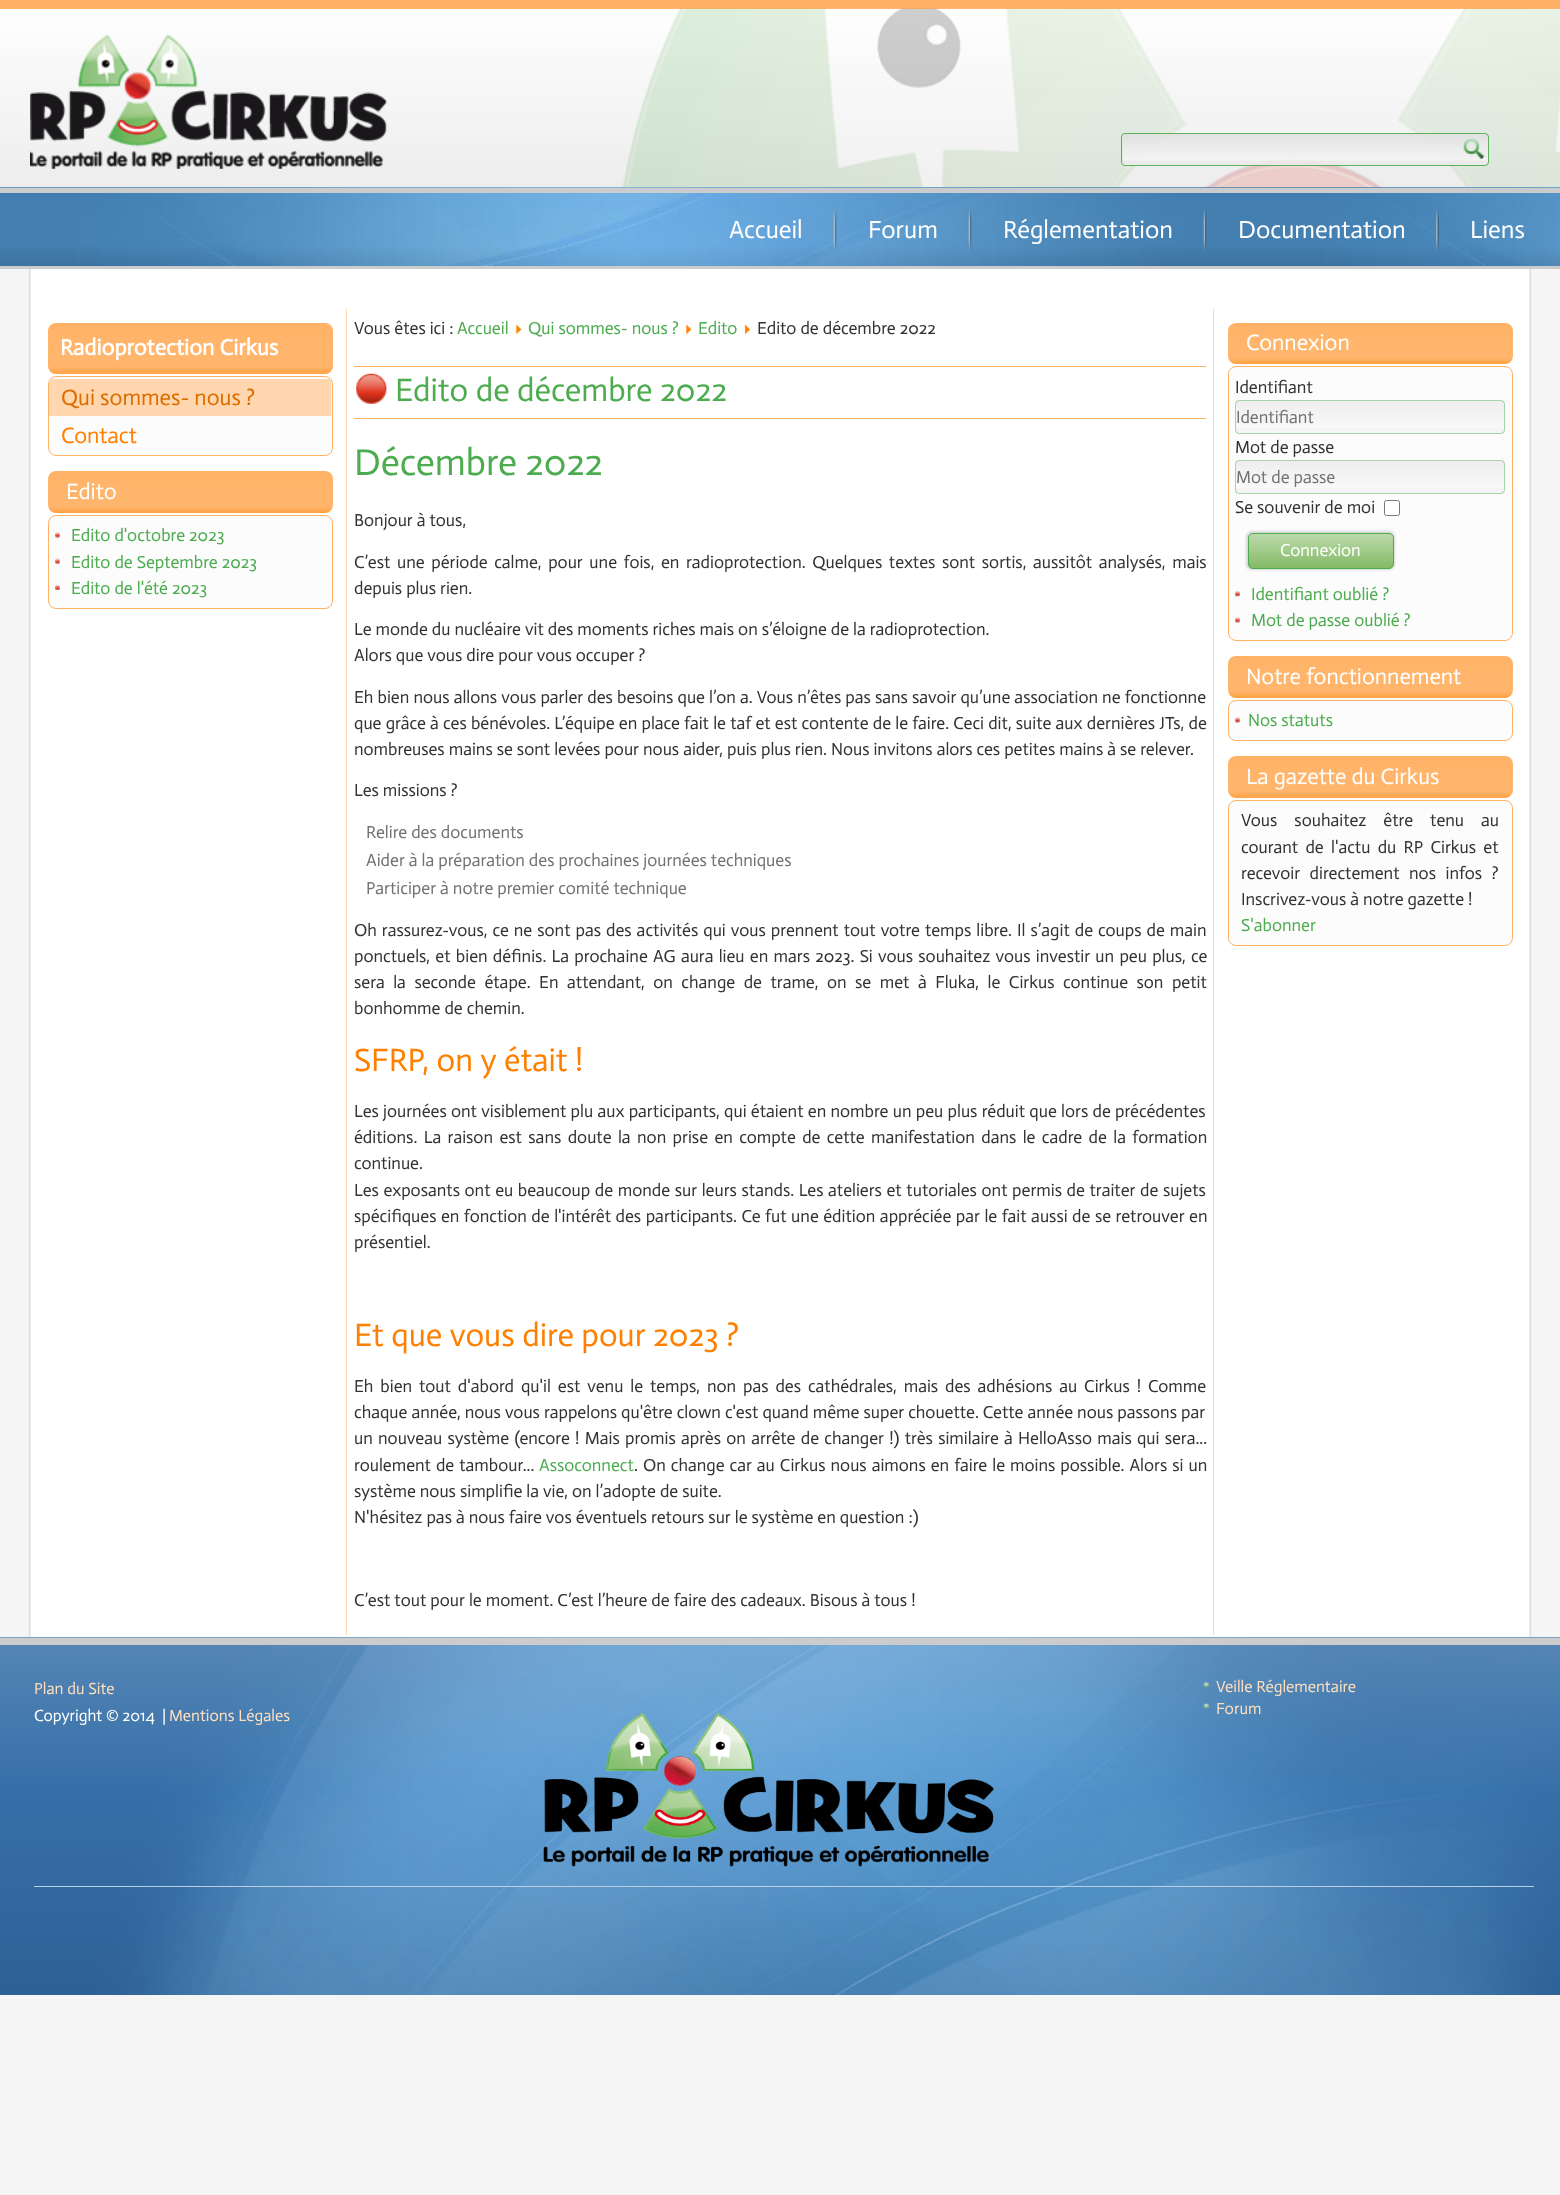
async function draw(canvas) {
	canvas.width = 1560;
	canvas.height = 2195;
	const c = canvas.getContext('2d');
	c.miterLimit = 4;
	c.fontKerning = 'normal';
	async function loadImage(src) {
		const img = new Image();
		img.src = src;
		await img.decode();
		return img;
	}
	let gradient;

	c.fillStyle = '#f5f5f5';
	c.fillRect(0, 0, 1560, 2195);
	c.drawImage(await loadImage('img1.png'), 0, 9, 1560, 179);
	c.fillStyle = '#ffb266';
	c.fillRect(0, 0, 1560, 9);
	c.drawImage(await loadImage('img2.png'), 30, 35, 357, 134);
	c.drawImage(await loadImage('img3.png'), 622, 8, 938, 180);
	gradient = c.createLinearGradient(1305, 134, 1305, 165);
	gradient.addColorStop(0, '#e0e0e0e6');
	gradient.addColorStop(0.85, '#f5f5f5e6');
	gradient.addColorStop(0.86, '#ebebebe6');
	gradient.addColorStop(1, '#ebebebe6');
	c.fillStyle = gradient;
	c.fillRect(1123, 134, 365, 31);
	c.beginPath();
	c.roundRect(1121.5, 133.5, 367, 32, 3.5);
	c.strokeStyle = '#4dac4fe6';
	c.stroke();
	c.drawImage(await loadImage('img4.png'), 1463, 138, 21, 21);
	c.fillStyle = '#0000001a';
	c.filter = 'blur(0.5px)';
	c.beginPath();
	c.rect(29, 268, 1502, 1371);
	c.fill();
	c.filter = 'none';
	c.drawImage(await loadImage('img5.png'), 0, 187, 1560, 79);
	c.fillStyle = '#ccc';
	c.fillRect(0, 188, 1560, 5);
	c.fillRect(0, 266, 1560, 3);
	c.font = '25px Actor';
	c.fillStyle = '#fff';
	c.fillText('Accueil', 729, 238);
	c.drawImage(await loadImage('img6.png'), 833, 209, 4, 42);
	c.fillText('Forum', 868, 238);
	c.drawImage(await loadImage('img7.png'), 968, 209, 4, 42);
	c.fillText('Réglementation', 1003, 238);
	c.drawImage(await loadImage('img8.png'), 1203, 209, 4, 42);
	c.fillText('Documentation', 1238, 238);
	c.drawImage(await loadImage('img9.png'), 1436, 209, 3, 42);
	c.fillText('Liens', 1470, 238);
	for (const [x, y, w, h, color] of [
		[31, 269, 1498, 1369, '#fff'],
		[1529, 269, 1, 1369, '#eaeaea'],
		[30, 269, 1, 1369, '#eaeaea'],
		[346, 309, 1, 1326, '#ffd6ad'],
	]) {
		c.fillStyle = color;
		c.fillRect(x, y, w, h);
	}
	gradient = c.createLinearGradient(190, 323, 190, 374);
	gradient.addColorStop(0, '#ffb266');
	gradient.addColorStop(0.4, '#ffb56b');
	gradient.addColorStop(0.85, '#ffb56b');
	gradient.addColorStop(1, '#ffa142');
	c.fillStyle = gradient;
	c.beginPath();
	c.roundRect(48, 323, 285, 51, 8);
	c.fill();
	c.font = 'bold 22.5px Actor';
	c.fillStyle = '#fff';
	c.fillText('Radioprotection Cirkus', 60, 355);
	c.fillStyle = '#fcfcfc';
	c.beginPath();
	c.roundRect(48.5, 376.5, 284, 79, 7.5);
	c.fill();
	c.strokeStyle = '#ffb266';
	c.stroke();
	c.fillStyle = '#ffd6ad';
	c.fillRect(49, 379, 282, 37);
	c.font = '22.5px Actor';
	c.fillStyle = '#db6e00';
	c.fillText('Qui sommes- nous ?', 61, 405);
	c.fillStyle = '#ff8000';
	c.fillText('Contact', 61, 443);
	gradient = c.createLinearGradient(190, 471, 190, 513);
	gradient.addColorStop(0, '#ffb266');
	gradient.addColorStop(0.4, '#ffb56b');
	gradient.addColorStop(0.85, '#ffb56b');
	gradient.addColorStop(1, '#ffa142');
	c.fillStyle = gradient;
	c.beginPath();
	c.roundRect(48, 471, 285, 42, 8);
	c.fill();
	c.fillStyle = '#fff';
	c.fillText('Edito', 66, 499);
	c.fillStyle = '#fcfcfc';
	c.beginPath();
	c.roundRect(48.5, 515.5, 284, 93, 7.5);
	c.fill();
	c.stroke();
	c.drawImage(await loadImage('img10.png'), 55, 532, 5, 6);
	c.font = '17.5px Actor';
	c.fillStyle = '#4dac4f';
	c.fillText('Edito d\'octobre 2023', 71, 541);
	c.drawImage(await loadImage('img11.png'), 55, 558, 5, 6);
	c.fillText('Edito de Septembre 2023', 71, 568);
	c.drawImage(await loadImage('img12.png'), 55, 585, 5, 5);
	c.fillText('Edito de l\'été 2023', 71, 594);
	c.fillStyle = '#333';
	c.fillText('Vous êtes ici :', 354, 334);
	c.fillStyle = '#4dac4f';
	c.fillText('Accueil', 457, 334);
	c.drawImage(await loadImage('img13.png'), 516, 324, 6, 10);
	c.fillText('Qui sommes- nous ?', 528, 334);
	c.drawImage(await loadImage('img13.png'), 686, 324, 6, 10);
	c.fillText('Edito', 698, 334);
	c.drawImage(await loadImage('img14.png'), 744, 324, 7, 10);
	c.fillStyle = '#333';
	c.fillText('Edito de décembre 2022', 757, 334);
	c.fillStyle = '#ffb266';
	c.fillRect(354, 366, 852, 1);
	c.fillRect(354, 418, 852, 1);
	c.drawImage(await loadImage('img15.png'), 356, 373, 31, 31);
	c.font = '32.5px Actor';
	c.fillStyle = '#4dac4f';
	c.fillText('Edito de décembre 2022', 395, 401);
	c.font = '37.5px Actor';
	c.fillText('Décembre 2022', 354, 475);
	c.font = '17.5px Actor';
	c.fillStyle = '#333';
	c.fillText('Bonjour à tous,', 354, 526);
	c.wordSpacing = '2.6px';
	c.fillText('C’est une période calme, pour une fois, en radioprotection. Quelques textes sont sortis, aussitôt analysés, mais', 354, 568);
	c.wordSpacing = '0px';
	for (const [text, x, y] of [
		['depuis plus rien.', 354, 594],
		['Le monde du nucléaire vit des moments riches mais on s’éloigne de la radioprotection.', 354, 635],
		['Alors que vous dire pour vous occuper ?', 354, 661],
	]) {
		c.fillText(text, x, y);
	}
	c.wordSpacing = '0.1px';
	c.fillText('Eh bien nous allons vous parler des besoins que l’on a. Vous n’êtes pas sans savoir qu’une association ne fonctionne', 354, 703);
	c.wordSpacing = '0.2px';
	c.fillText('que grâce à ces bénévoles. L’équipe en place fait le taf et est contente de le faire. Ceci dit, suite aux dernières JTs, de', 354, 729);
	c.wordSpacing = '0px';
	c.fillText('nombreuses mains se sont levées pour nous aider, puis plus rien. Nous invitons alors ces petites mains à se relever.', 354, 755);
	c.fillText('Les missions ?', 354, 796);
	c.fillStyle = '#737373';
	for (const [text, x, y] of [
		['Relire des documents', 366, 838],
		['Aider à la préparation des prochaines journées techniques', 366, 866],
		['Participer à notre premier comité technique', 366, 894],
	]) {
		c.fillText(text, x, y);
	}
	c.wordSpacing = '1px';
	c.fillStyle = '#333';
	c.fillText('Oh rassurez-vous, ce ne sont pas des activités qui vous prennent tout votre temps libre. Il s’agit de coups de main', 354, 936);
	c.wordSpacing = '1.25px';
	c.fillText('ponctuels, et bien définis. La prochaine AG aura lieu en mars 2023. Si vous souhaitez vous investir un peu plus, ce', 354, 962);
	c.wordSpacing = '4.5px';
	c.fillText('sera la seconde étape. En attendant, on change de trame, on se met à Fluka, le Cirkus continue son petit', 354, 988);
	c.wordSpacing = '0px';
	c.fillText('bonhomme de chemin.', 354, 1014);
	c.font = '32.5px Actor';
	c.fillStyle = '#ff8000';
	c.fillText('SFRP, on y était !', 354, 1071);
	c.wordSpacing = '0.25px';
	c.font = '17.5px Actor';
	c.fillStyle = '#333';
	c.fillText('Les journées ont visiblement plu aux participants, qui étaient en nombre un peu plus réduit que lors de précédentes', 354, 1117);
	c.wordSpacing = '2.4px';
	c.fillText('éditions. La raison est sans doute la non prise en compte de cette manifestation dans le cadre de la formation', 354, 1143);
	c.wordSpacing = '0px';
	c.fillText('continue.', 354, 1169);
	c.wordSpacing = '0.6px';
	c.fillText('Les exposants ont eu beaucoup de monde sur leurs stands. Les ateliers et tutoriales ont permis de traiter de sujets', 354, 1196);
	c.wordSpacing = '0.5px';
	c.fillText('spécifiques en fonction de l\'intérêt des participants. Ce fut une édition appréciée par le fait aussi de se retrouver en', 354, 1222);
	c.wordSpacing = '0px';
	c.fillText('présentiel.', 354, 1248);
	c.font = '32.5px Actor';
	c.fillStyle = '#ff8000';
	c.fillText('Et que vous dire pour 2023 ?', 354, 1346);
	c.wordSpacing = '2.9px';
	c.font = '17.5px Actor';
	c.fillStyle = '#333';
	c.fillText('Eh bien tout d\'abord qu\'il est venu le temps, non pas des cathédrales, mais des adhésions au Cirkus ! Comme', 354, 1392);
	c.wordSpacing = '0px';
	c.fillText('chaque année, nous vous rappelons qu\'être clown c\'est quand même super chouette. Cette année nous passons par', 354, 1418);
	c.wordSpacing = '1.25px';
	c.fillText('un nouveau système (encore ! Mais promis après on arrête de changer !) très similaire à HelloAsso mais qui sera...', 354, 1444);
	c.wordSpacing = '1px';
	c.fillText('roulement de tambour...', 354, 1471);
	c.wordSpacing = '0px';
	c.fillStyle = '#4dac4f';
	c.fillText('Assoconnect', 539, 1471);
	c.wordSpacing = '1px';
	c.fillStyle = '#333';
	c.fillText('. On change car au Cirkus nous aimons en faire le moins possible. Alors si un', 634, 1471);
	c.wordSpacing = '0px';
	for (const [text, x, y] of [
		['système nous simplifie la vie, on l’adopte de suite.', 354, 1497],
		['N\'hésitez pas à nous faire vos éventuels retours sur le système en question :)', 354, 1523],
		['C’est tout pour le moment. C’est l’heure de faire des cadeaux. Bisous à tous !', 354, 1606],
	]) {
		c.fillText(text, x, y);
	}
	c.fillStyle = '#ffd6ad';
	c.fillRect(1213, 309, 1, 1326);
	gradient = c.createLinearGradient(1370, 323, 1370, 364);
	gradient.addColorStop(0, '#ffb266');
	gradient.addColorStop(0.4, '#ffb56b');
	gradient.addColorStop(0.85, '#ffb56b');
	gradient.addColorStop(1, '#ffa142');
	c.fillStyle = gradient;
	c.beginPath();
	c.roundRect(1228, 323, 285, 41, 8);
	c.fill();
	c.font = '22.5px Actor';
	c.fillStyle = '#fff';
	c.fillText('Connexion', 1246, 350);
	c.fillStyle = '#fcfcfc';
	c.beginPath();
	c.roundRect(1228.5, 366.5, 284, 274, 7.5);
	c.fill();
	c.stroke();
	c.font = '17.5px Actor';
	c.fillStyle = '#333';
	c.fillText('Identifiant', 1235, 393);
	c.save();
	c.beginPath();
	c.roundRect(1235, 400, 270, 34, 4);
	c.clip();
	gradient = c.createLinearGradient(1370, 401, 1370, 433);
	gradient.addColorStop(0, '#eee');
	gradient.addColorStop(0.85, '#f9f9f9');
	gradient.addColorStop(0.86, '#f4f4f4');
	gradient.addColorStop(1, '#f4f4f4');
	c.fillStyle = gradient;
	c.fillRect(1236, 401, 268, 32);
	c.restore();
	c.beginPath();
	c.roundRect(1235.5, 400.5, 269, 33, 3.5);
	c.strokeStyle = '#4dac4f80';
	c.stroke();
	c.fillStyle = '#737373';
	c.fillText('Identifiant', 1236, 423);
	c.fillStyle = '#333';
	c.fillText('Mot de passe', 1235, 453);
	c.save();
	c.beginPath();
	c.roundRect(1235, 460, 270, 34, 4);
	c.clip();
	gradient = c.createLinearGradient(1370, 461, 1370, 493);
	gradient.addColorStop(0, '#eee');
	gradient.addColorStop(0.85, '#f9f9f9');
	gradient.addColorStop(0.86, '#f4f4f4');
	gradient.addColorStop(1, '#f4f4f4');
	c.fillStyle = gradient;
	c.fillRect(1236, 461, 268, 32);
	c.restore();
	c.beginPath();
	c.roundRect(1235.5, 460.5, 269, 33, 3.5);
	c.stroke();
	c.fillStyle = '#737373';
	c.fillText('Mot de passe', 1236, 483);
	c.fillStyle = '#333';
	c.fillText('Se souvenir de moi', 1235, 513);
	c.fillStyle = '#fff';
	c.beginPath();
	c.roundRect(1384.5, 500.5, 15, 15, 2);
	c.fill();
	c.strokeStyle = '#767676';
	c.stroke();
	c.fillStyle = '#00000026';
	c.filter = 'blur(1px)';
	c.beginPath();
	c.roundRect(1246, 531, 149, 39, 6);
	c.fill();
	c.filter = 'none';
	gradient = c.createLinearGradient(1321, 533, 1321, 569);
	gradient.addColorStop(0, '#bedbae');
	gradient.addColorStop(1, '#82b964');
	c.fillStyle = gradient;
	c.beginPath();
	c.roundRect(1248.5, 533.5, 145, 35, 4.5);
	c.fill();
	c.strokeStyle = '#4dac4f';
	c.stroke();
	c.fillStyle = '#fff';
	c.fillText('Connexion', 1280, 556);
	c.drawImage(await loadImage('img16.png'), 1235, 591, 5, 6);
	c.fillStyle = '#4dac4f';
	c.fillText('Identifiant oublié ?', 1251, 600);
	c.drawImage(await loadImage('img10.png'), 1235, 617, 5, 6);
	c.fillText('Mot de passe oublié ?', 1251, 626);
	gradient = c.createLinearGradient(1370, 656, 1370, 698);
	gradient.addColorStop(0, '#ffb266');
	gradient.addColorStop(0.4, '#ffb56b');
	gradient.addColorStop(0.85, '#ffb56b');
	gradient.addColorStop(1, '#ffa142');
	c.fillStyle = gradient;
	c.beginPath();
	c.roundRect(1228, 656, 285, 42, 8);
	c.fill();
	c.font = '22.5px Actor';
	c.fillStyle = '#fff';
	c.fillText('Notre fonctionnement', 1246, 684);
	c.fillStyle = '#fcfcfc';
	c.beginPath();
	c.roundRect(1228.5, 700.5, 284, 40, 7.5);
	c.fill();
	c.strokeStyle = '#ffb266';
	c.stroke();
	c.drawImage(await loadImage('img10.png'), 1235, 717, 5, 6);
	c.font = '17.5px Actor';
	c.fillStyle = '#4dac4f';
	c.fillText('Nos statuts', 1248, 726);
	gradient = c.createLinearGradient(1370, 756, 1370, 798);
	gradient.addColorStop(0, '#ffb266');
	gradient.addColorStop(0.4, '#ffb56b');
	gradient.addColorStop(0.85, '#ffb56b');
	gradient.addColorStop(1, '#ffa142');
	c.fillStyle = gradient;
	c.beginPath();
	c.roundRect(1228, 756, 285, 42, 8);
	c.fill();
	c.font = '22.5px Actor';
	c.fillStyle = '#fff';
	c.fillText('La gazette du Cirkus', 1246, 784);
	c.fillStyle = '#fcfcfc';
	c.beginPath();
	c.roundRect(1228.5, 800.5, 284, 145, 7.5);
	c.fill();
	c.stroke();
	c.wordSpacing = '13px';
	c.font = '17.5px Actor';
	c.fillStyle = '#333';
	c.fillText('Vous souhaitez être tenu au', 1241, 826);
	c.wordSpacing = '3.25px';
	c.fillText('courant de l\'actu du RP Cirkus et', 1241, 853);
	c.wordSpacing = '5.5px';
	c.fillText('recevoir directement nos infos ?', 1241, 879);
	c.wordSpacing = '0px';
	c.fillText('Inscrivez-vous à notre gazette !', 1241, 905);
	c.fillStyle = '#4dac4f';
	c.fillText('S\'abonner', 1241, 931);
	c.drawImage(await loadImage('img17.png'), 0, 1637, 1560, 358);
	c.fillStyle = '#ccc';
	c.fillRect(0, 1638, 1560, 7);
	c.font = '16.25px Actor';
	c.fillStyle = '#ffdebd';
	c.fillText('Plan du Site', 34, 1694);
	c.fillStyle = '#fff';
	c.fillText('Copyright © 2014  |', 34, 1721);
	c.fillStyle = '#ffdebd';
	c.fillText('Mentions Légales', 169, 1721);
	c.drawImage(await loadImage('img18.png'), 1203, 1682, 6, 6);
	c.fillText('Veille Réglementaire', 1216, 1692);
	c.drawImage(await loadImage('img19.png'), 1203, 1703, 6, 6);
	c.fillText('Forum', 1216, 1714);
	c.drawImage(await loadImage('img20.png'), 543, 1712, 451, 155);
	c.fillStyle = '#b9d0e4';
	c.fillRect(34, 1886, 1500, 1);
}

draw(document.querySelector('canvas'));
